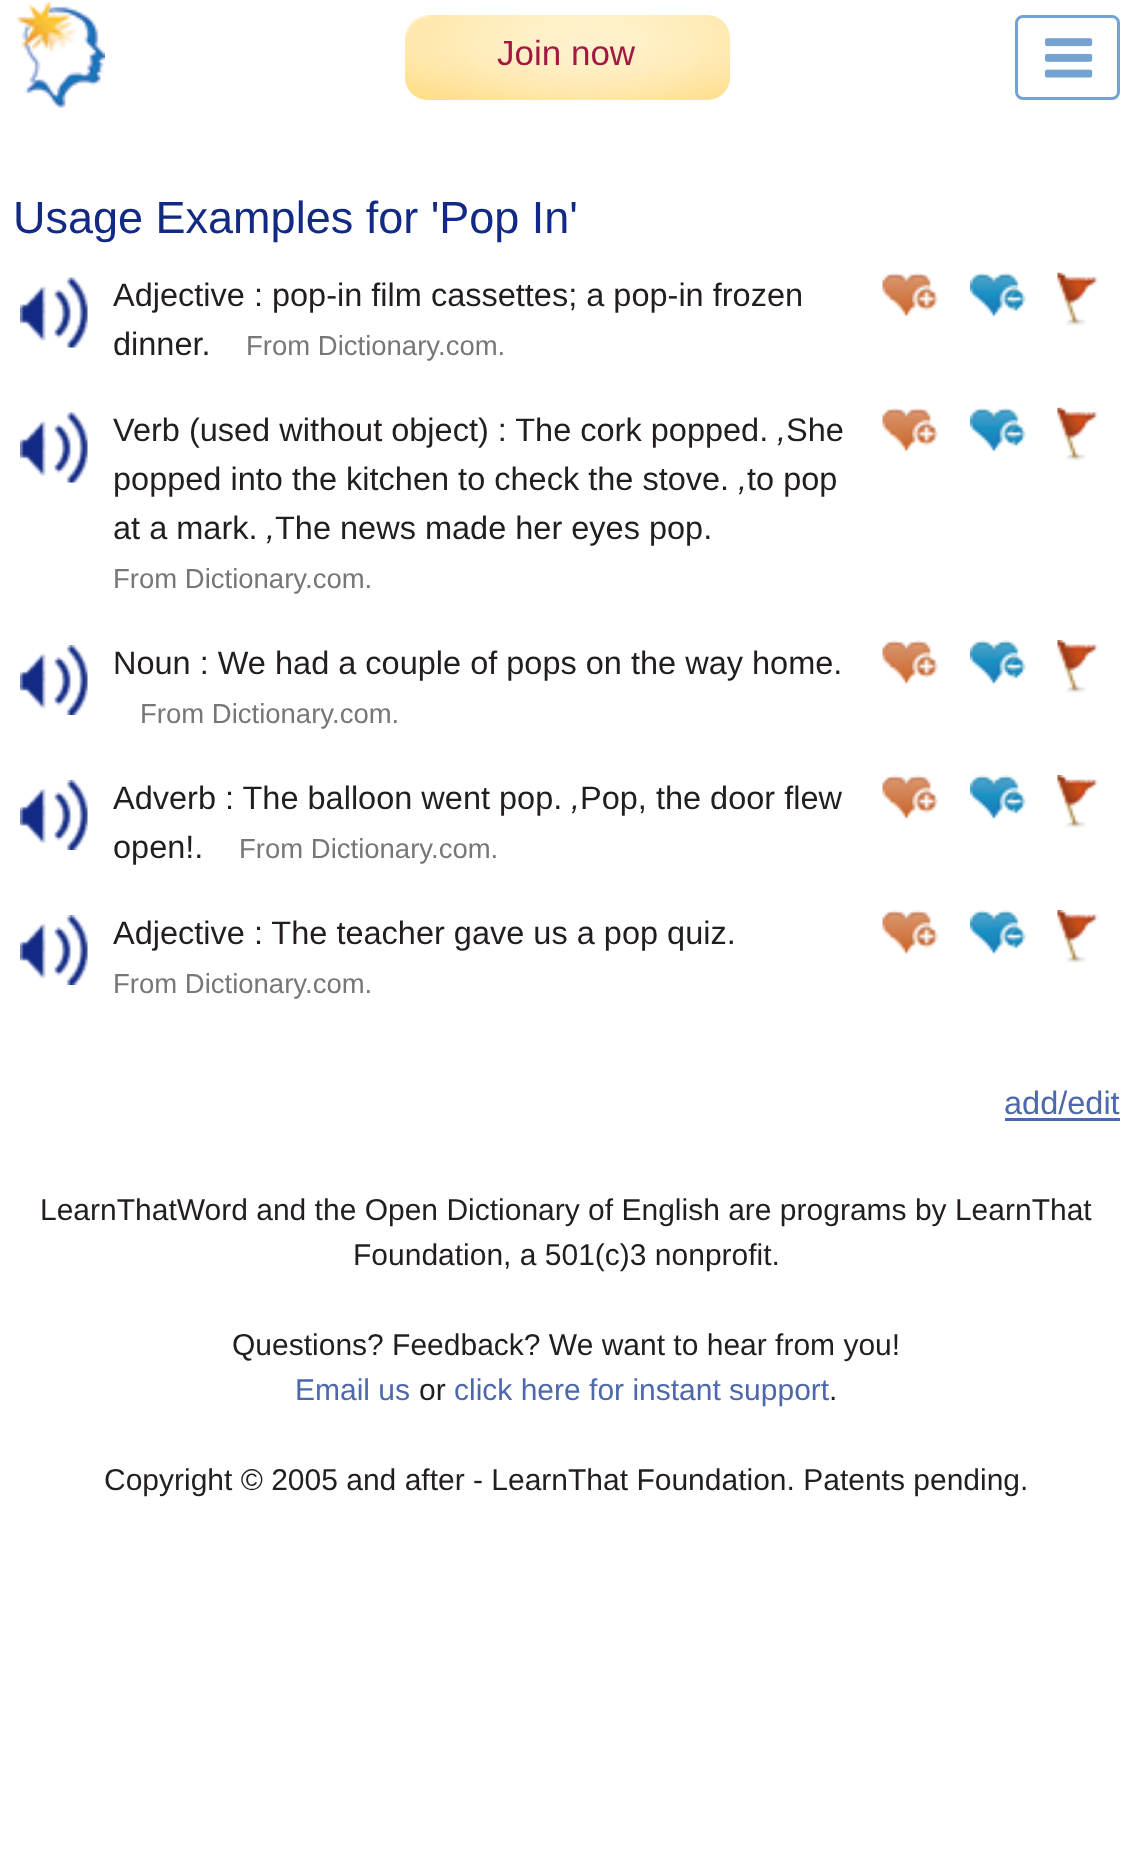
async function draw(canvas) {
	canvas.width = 1132;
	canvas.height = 1872;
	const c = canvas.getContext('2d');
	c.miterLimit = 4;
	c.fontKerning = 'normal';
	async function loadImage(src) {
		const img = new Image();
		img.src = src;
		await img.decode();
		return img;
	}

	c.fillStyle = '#fff';
	c.fillRect(0, 0, 1132, 1872);
	c.drawImage(await loadImage('img1.png'), 16, 0, 89, 108);
	c.drawImage(await loadImage('img2.png'), 405, 15, 325, 85);
	c.font = '35px Liberation Sans';
	c.fillStyle = '#a31842';
	c.fillText('Join now', 497, 65);
	c.beginPath();
	c.roundRect(1016.5, 16.5, 102, 82, 6.5);
	c.strokeStyle = '#75a3d1';
	c.lineWidth = 3;
	c.stroke();
	c.drawImage(await loadImage('img3.png'), 1045, 38, 48, 40);
	c.font = '45px Liberation Sans';
	c.fillStyle = '#122a83';
	c.fillText('Usage Examples for \'Pop In\'', 13, 233);
	c.drawImage(await loadImage('img4.png'), 20, 277, 68, 71);
	c.font = '32.5px Liberation Sans';
	c.fillStyle = '#231e1e';
	c.fillText('Adjective : pop-in film cassettes; a pop-in frozen', 113, 306);
	c.fillText('dinner.', 113, 355);
	c.font = '27.5px Liberation Sans';
	c.fillStyle = '#777';
	c.fillText('From Dictionary.com.', 246, 355);
	c.drawImage(await loadImage('img5.png'), 882, 272, 57, 46);
	c.drawImage(await loadImage('img6.png'), 970, 272, 56, 46);
	c.drawImage(await loadImage('img7.png'), 1057, 272, 42, 54);
	c.drawImage(await loadImage('img8.png'), 20, 412, 68, 71);
	c.font = '32.5px Liberation Sans';
	c.fillStyle = '#231e1e';
	c.fillText('Verb (used without object) : The cork popped.', 113, 441);
	c.font = 'italic 32.5px Liberation Sans';
	c.fillText(',', 777, 441);
	c.font = '32.5px Liberation Sans';
	c.fillText('She', 786, 441);
	c.fillText('popped into the kitchen to check the stove.', 113, 490);
	c.font = 'italic 32.5px Liberation Sans';
	c.fillText(',', 738, 490);
	c.font = '32.5px Liberation Sans';
	c.fillText('to pop', 747, 490);
	c.fillText('at a mark.', 113, 539);
	c.font = 'italic 32.5px Liberation Sans';
	c.fillText(',', 266, 539);
	c.font = '32.5px Liberation Sans';
	c.fillText('The news made her eyes pop.', 275, 539);
	c.font = '27.5px Liberation Sans';
	c.fillStyle = '#777';
	c.fillText('From Dictionary.com.', 113, 588);
	c.drawImage(await loadImage('img5.png'), 882, 407, 57, 46);
	c.drawImage(await loadImage('img6.png'), 970, 407, 56, 46);
	c.drawImage(await loadImage('img7.png'), 1057, 407, 42, 54);
	c.drawImage(await loadImage('img9.png'), 20, 645, 68, 70);
	c.font = '32.5px Liberation Sans';
	c.fillStyle = '#231e1e';
	c.fillText('Noun : We had a couple of pops on the way home.', 113, 674);
	c.font = '27.5px Liberation Sans';
	c.fillStyle = '#777';
	c.fillText('From Dictionary.com.', 140, 723);
	c.drawImage(await loadImage('img10.png'), 882, 640, 57, 45);
	c.drawImage(await loadImage('img11.png'), 970, 640, 56, 46);
	c.drawImage(await loadImage('img12.png'), 1057, 640, 42, 53);
	c.drawImage(await loadImage('img13.png'), 20, 780, 68, 70);
	c.font = '32.5px Liberation Sans';
	c.fillStyle = '#231e1e';
	c.fillText('Adverb : The balloon went pop.', 113, 809);
	c.font = 'italic 32.5px Liberation Sans';
	c.fillText(',', 571, 809);
	c.font = '32.5px Liberation Sans';
	c.fillText('Pop, the door flew', 580, 809);
	c.fillText('open!.', 113, 858);
	c.font = '27.5px Liberation Sans';
	c.fillStyle = '#777';
	c.fillText('From Dictionary.com.', 239, 858);
	c.drawImage(await loadImage('img14.png'), 882, 775, 57, 45);
	c.drawImage(await loadImage('img15.png'), 970, 775, 56, 46);
	c.drawImage(await loadImage('img16.png'), 1057, 775, 42, 53);
	c.drawImage(await loadImage('img9.png'), 20, 915, 68, 70);
	c.font = '32.5px Liberation Sans';
	c.fillStyle = '#231e1e';
	c.fillText('Adjective : The teacher gave us a pop quiz.', 113, 944);
	c.font = '27.5px Liberation Sans';
	c.fillStyle = '#777';
	c.fillText('From Dictionary.com.', 113, 993);
	c.drawImage(await loadImage('img10.png'), 882, 910, 57, 45);
	c.drawImage(await loadImage('img11.png'), 970, 910, 56, 46);
	c.drawImage(await loadImage('img12.png'), 1057, 910, 42, 53);
	c.font = '32.5px Liberation Sans';
	c.fillStyle = '#4d68ab';
	c.fillText('add/edit', 1004, 1114);
	c.fillRect(1005, 1118, 115, 3);
	c.font = '30px Liberation Sans';
	c.fillStyle = '#231e1e';
	for (const [text, x, y] of [
		['LearnThatWord and the Open Dictionary of English are programs by LearnThat', 40, 1220],
		['Foundation, a 501(c)3 nonprofit.', 353, 1265],
		['Questions? Feedback? We want to hear from you!', 232, 1355],
	]) {
		c.fillText(text, x, y);
	}
	c.fillStyle = '#4d68ab';
	c.fillText('Email us', 295, 1400);
	c.fillStyle = '#231e1e';
	c.fillText('or', 419, 1400);
	c.fillStyle = '#4d68ab';
	c.fillText('click here for instant support', 454, 1400);
	c.fillStyle = '#231e1e';
	c.fillText('.', 829, 1400);
	c.fillText('Copyright © 2005 and after - LearnThat Foundation. Patents pending.', 104, 1490);
}

draw(document.querySelector('canvas'));
